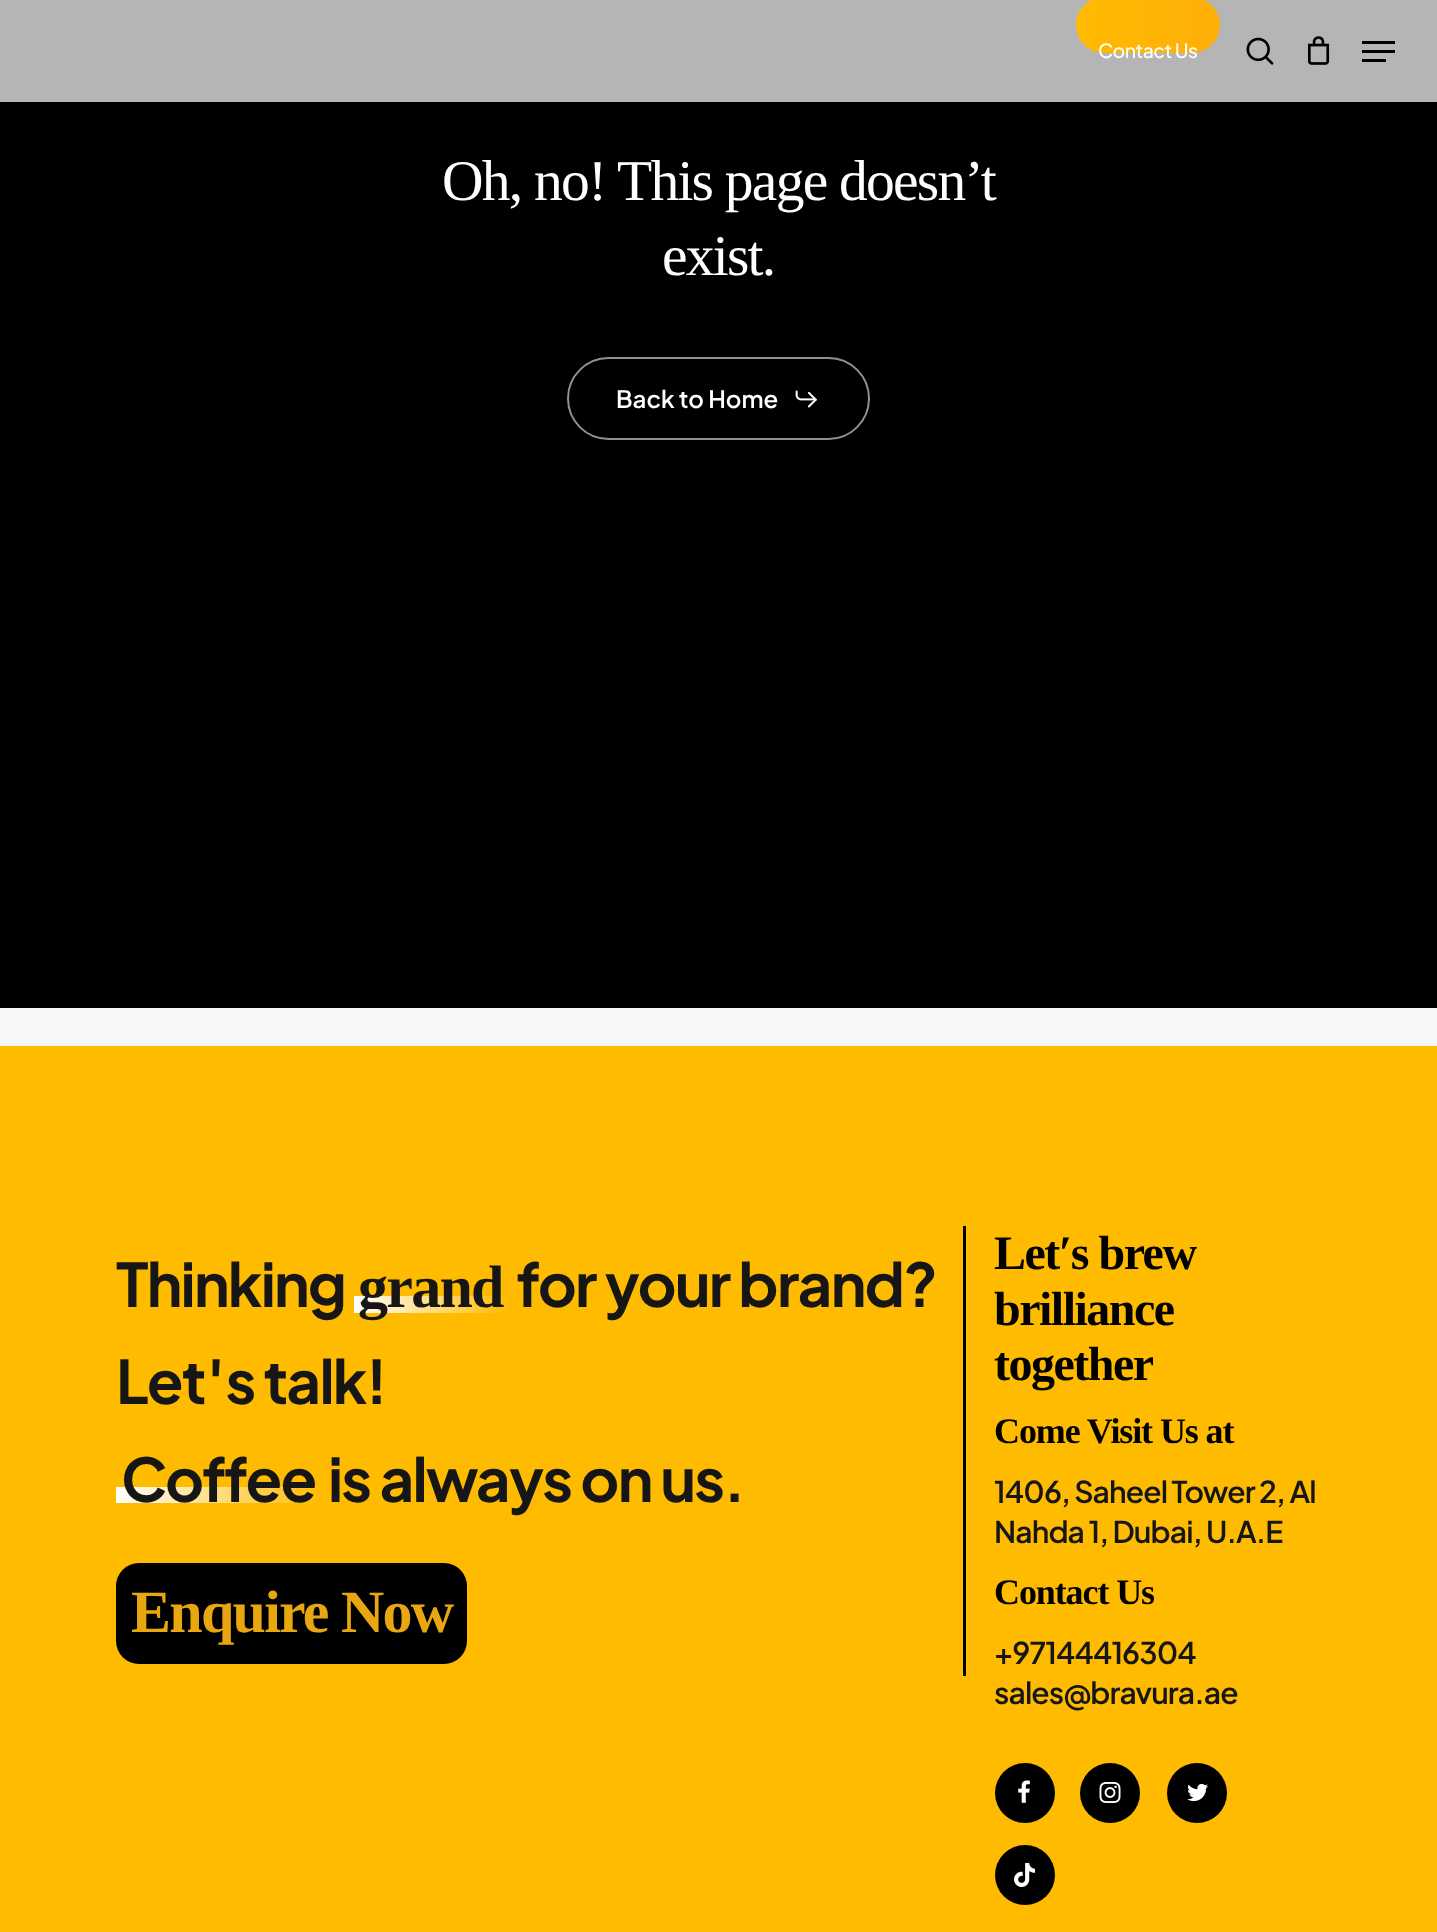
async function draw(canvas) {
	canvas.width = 1437;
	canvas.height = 1932;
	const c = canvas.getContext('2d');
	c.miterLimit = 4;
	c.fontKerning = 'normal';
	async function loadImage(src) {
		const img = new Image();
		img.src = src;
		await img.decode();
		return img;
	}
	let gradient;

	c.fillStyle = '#f7f7f7';
	c.fillRect(0, 0, 1437, 1932);
	c.fillStyle = '#b5b5b5';
	c.fillRect(0, 0, 1437, 102);
	gradient = c.createLinearGradient(1076, 24, 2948, 24);
	gradient.addColorStop(0, '#fb0');
	gradient.addColorStop(0.5, '#ff6b3d');
	gradient.addColorStop(1, '#fb0');
	c.fillStyle = gradient;
	c.beginPath();
	c.roundRect(1076, -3, 144, 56, 28);
	c.fill();
	c.letterSpacing = '-0.5px';
	c.font = '500 19.5px Plus Jakarta Sans';
	c.fillStyle = '#fff';
	c.fillText('Contact Us', 1098, 58);
	c.drawImage(await loadImage('img1.png'), 1246, 37, 28, 28);
	c.drawImage(await loadImage('img2.png'), 1308, 36, 22, 29);
	for (const [x, y, w, h, color] of [
		[1362, 41, 33, 3, '#000'],
		[1362, 59, 24, 3, '#000'],
		[1362, 50, 33, 3, '#000'],
		[0, 102, 1437, 906, '#000'],
	]) {
		c.fillStyle = color;
		c.fillRect(x, y, w, h);
	}
	c.letterSpacing = '-1.75px';
	c.font = '57.5px Liberation Serif';
	c.fillStyle = '#fff';
	c.fillText('Oh, no! This page doesn’t', 442, 200);
	c.fillText('exist.', 662, 275);
	c.beginPath();
	c.roundRect(568, 358, 301, 81, 40.5);
	c.strokeStyle = '#919191';
	c.lineWidth = 2;
	c.stroke();
	c.letterSpacing = '0px';
	c.font = '600 24px Plus Jakarta Sans';
	c.fillText('Back to Home', 616, 408);
	c.drawImage(await loadImage('img3.png'), 795, 390, 22, 18);
	c.fillStyle = '#fb0';
	c.fillRect(0, 1046, 1437, 886);
	c.letterSpacing = '-1.75px';
	c.font = 'bold 60px Plus Jakarta Sans';
	c.fillStyle = '#161616';
	c.fillText('Thinking', 116, 1307);
	gradient = c.createLinearGradient(354, 1304, 507, 1304);
	gradient.addColorStop(0, '#fff');
	gradient.addColorStop(1, '#ffbc03');
	c.fillStyle = gradient;
	c.fillRect(354, 1296, 153, 17);
	c.font = 'bold 60px Liberation Serif';
	c.fillStyle = '#161616';
	c.fillText('grand', 358, 1307);
	c.font = 'bold 60px Plus Jakarta Sans';
	c.fillText('for your brand?', 516, 1307);
	c.fillText('Let′s talk!', 116, 1404);
	gradient = c.createLinearGradient(116, 1495, 320, 1495);
	gradient.addColorStop(0, '#fff');
	gradient.addColorStop(1, '#ffbc03');
	c.fillStyle = gradient;
	c.fillRect(116, 1487, 204, 16);
	c.fillStyle = '#161616';
	c.fillText('Coffee', 121, 1502);
	c.fillText('is always on us.', 328, 1502);
	c.fillStyle = '#000';
	c.beginPath();
	c.roundRect(116, 1563, 351, 101, 23);
	c.fill();
	c.font = 'bold 60px Liberation Serif';
	c.fillStyle = '#e8a710';
	c.fillText('Enquire Now', 131, 1632);
	c.fillStyle = '#000';
	c.fillRect(963, 1226, 3, 450);
	c.letterSpacing = '-1.5px';
	c.font = 'bold 48px Liberation Serif';
	for (const [text, x, y] of [
		['Let′s brew', 994, 1269],
		['brilliance', 994, 1325],
		['together', 994, 1380],
	]) {
		c.fillText(text, x, y);
	}
	c.letterSpacing = '-1.1px';
	c.font = 'bold 36px Liberation Serif';
	c.fillText('Come Visit Us at', 994, 1443);
	c.letterSpacing = '-0.9px';
	c.font = '600 30px Plus Jakarta Sans';
	c.fillStyle = '#161616';
	c.fillText('1406, Saheel Tower 2, Al', 994, 1503);
	c.fillText('Nahda 1, Dubai, U.A.E', 994, 1543);
	c.letterSpacing = '-1.1px';
	c.font = 'bold 36px Liberation Serif';
	c.fillStyle = '#000';
	c.fillText('Contact Us', 994, 1604);
	c.letterSpacing = '-0.9px';
	c.font = '600 30px Plus Jakarta Sans';
	c.fillStyle = '#161616';
	c.fillText('+97144416304', 994, 1664);
	c.fillText('sales@bravura.ae', 994, 1704);
	c.fillStyle = '#000';
	c.beginPath();
	c.arc(1025, 1793, 30, 0, 2 * Math.PI);
	c.fill();
	c.drawImage(await loadImage('img4.png'), 1018, 1780, 12, 23);
	c.beginPath();
	c.arc(1110, 1793, 30, 0, 2 * Math.PI);
	c.fill();
	c.drawImage(await loadImage('img5.png'), 1099, 1782, 22, 21);
	c.beginPath();
	c.arc(1197, 1793, 30, 0, 2 * Math.PI);
	c.fill();
	c.drawImage(await loadImage('img6.png'), 1187, 1783, 21, 19);
	c.beginPath();
	c.arc(1025, 1875, 30, 0, 2 * Math.PI);
	c.fill();
	c.drawImage(await loadImage('img7.png'), 1014, 1863, 21, 24);
}

draw(document.querySelector('canvas'));
